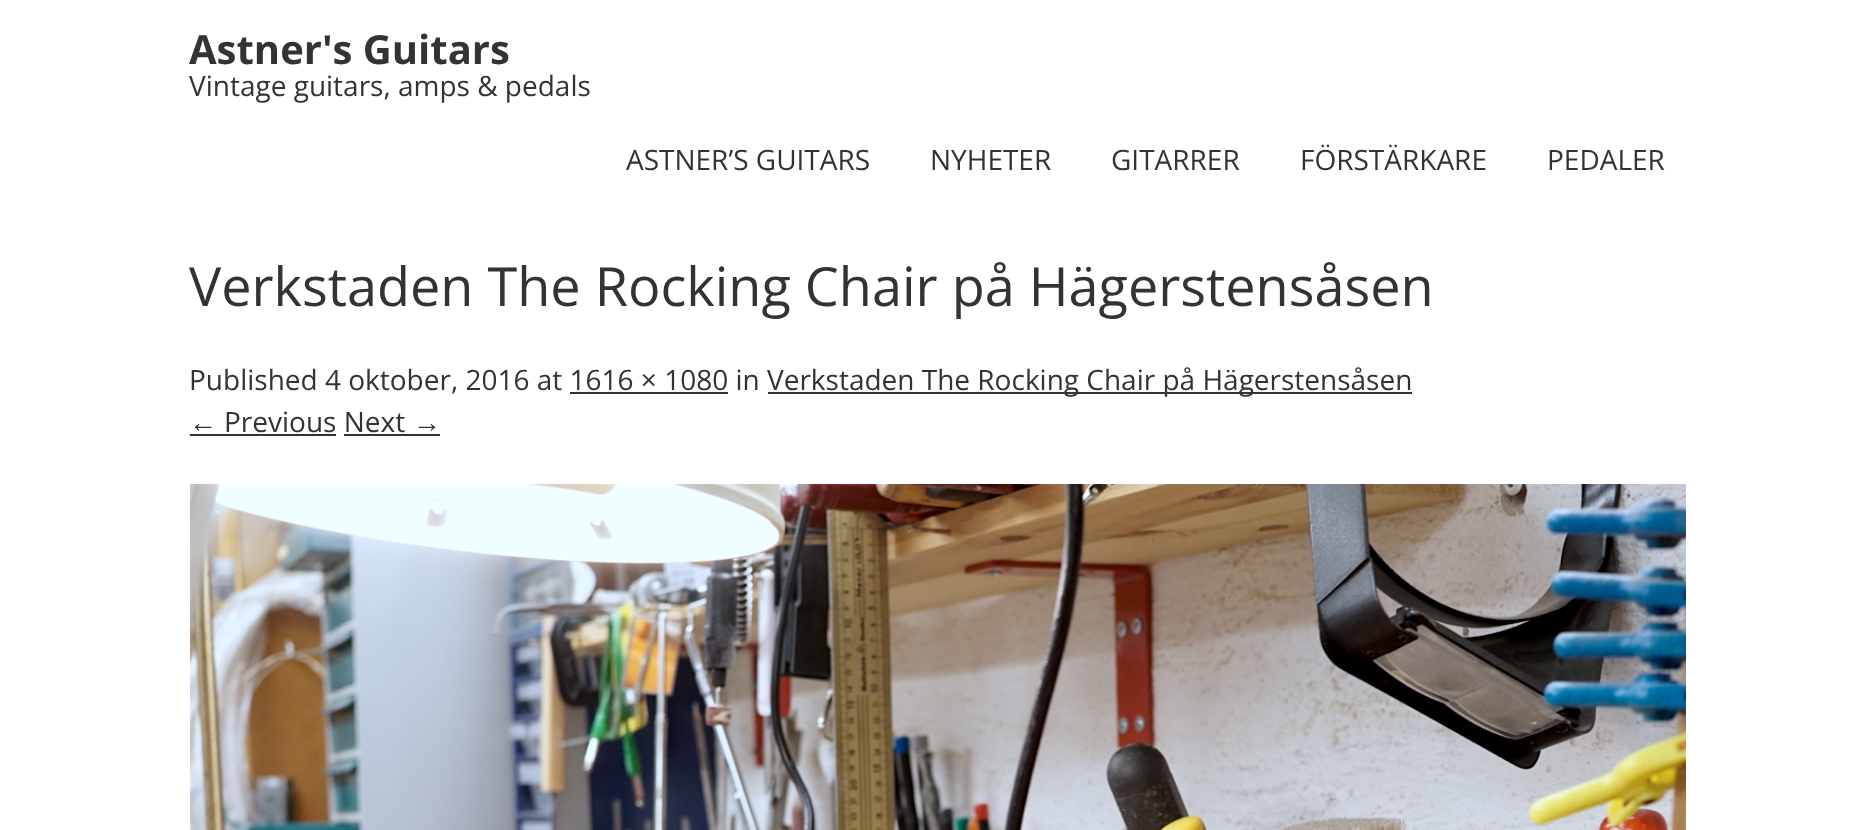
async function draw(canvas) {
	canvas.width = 1874;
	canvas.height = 830;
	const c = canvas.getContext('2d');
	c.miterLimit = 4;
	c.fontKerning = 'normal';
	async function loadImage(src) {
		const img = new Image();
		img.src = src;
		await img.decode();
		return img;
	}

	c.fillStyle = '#fff';
	c.fillRect(0, 0, 1874, 830);
	c.font = 'bold 40px Open Sans';
	c.fillStyle = '#333';
	c.fillText('Astner\'s Guitars', 189, 64);
	c.font = '28px Open Sans';
	for (const [text, x, y] of [
		['Vintage guitars, amps & pedals', 189, 96],
		['ASTNER’S GUITARS', 626, 170],
		['NYHETER', 930, 170],
		['GITARRER', 1111, 170],
		['FÖRSTÄRKARE', 1300, 170],
		['PEDALER', 1547, 170],
	]) {
		c.fillText(text, x, y);
	}
	c.font = '54px Open Sans';
	c.fillText('Verkstaden The Rocking Chair på Hägerstensåsen', 189, 306);
	c.font = '28px Open Sans';
	c.fillText('Published 4 oktober, 2016 at 1616 × 1080 in', 189, 390);
	c.fillRect(768, 392, 644, 2);
	c.fillText('Verkstaden The Rocking Chair på Hägerstensåsen', 767, 390);
	c.fillRect(570, 392, 158, 2);
	c.font = '28px Liberation Sans';
	c.fillText('←', 189, 432);
	c.fillRect(190, 434, 146, 2);
	c.font = '28px Open Sans';
	c.fillText('Previous Next', 224, 432);
	c.font = '28px Liberation Sans';
	c.fillText('→', 413, 432);
	c.fillRect(344, 434, 96, 2);
	c.drawImage(await loadImage('img1.png'), 190, 484, 1496, 346);
}

draw(document.querySelector('canvas'));
